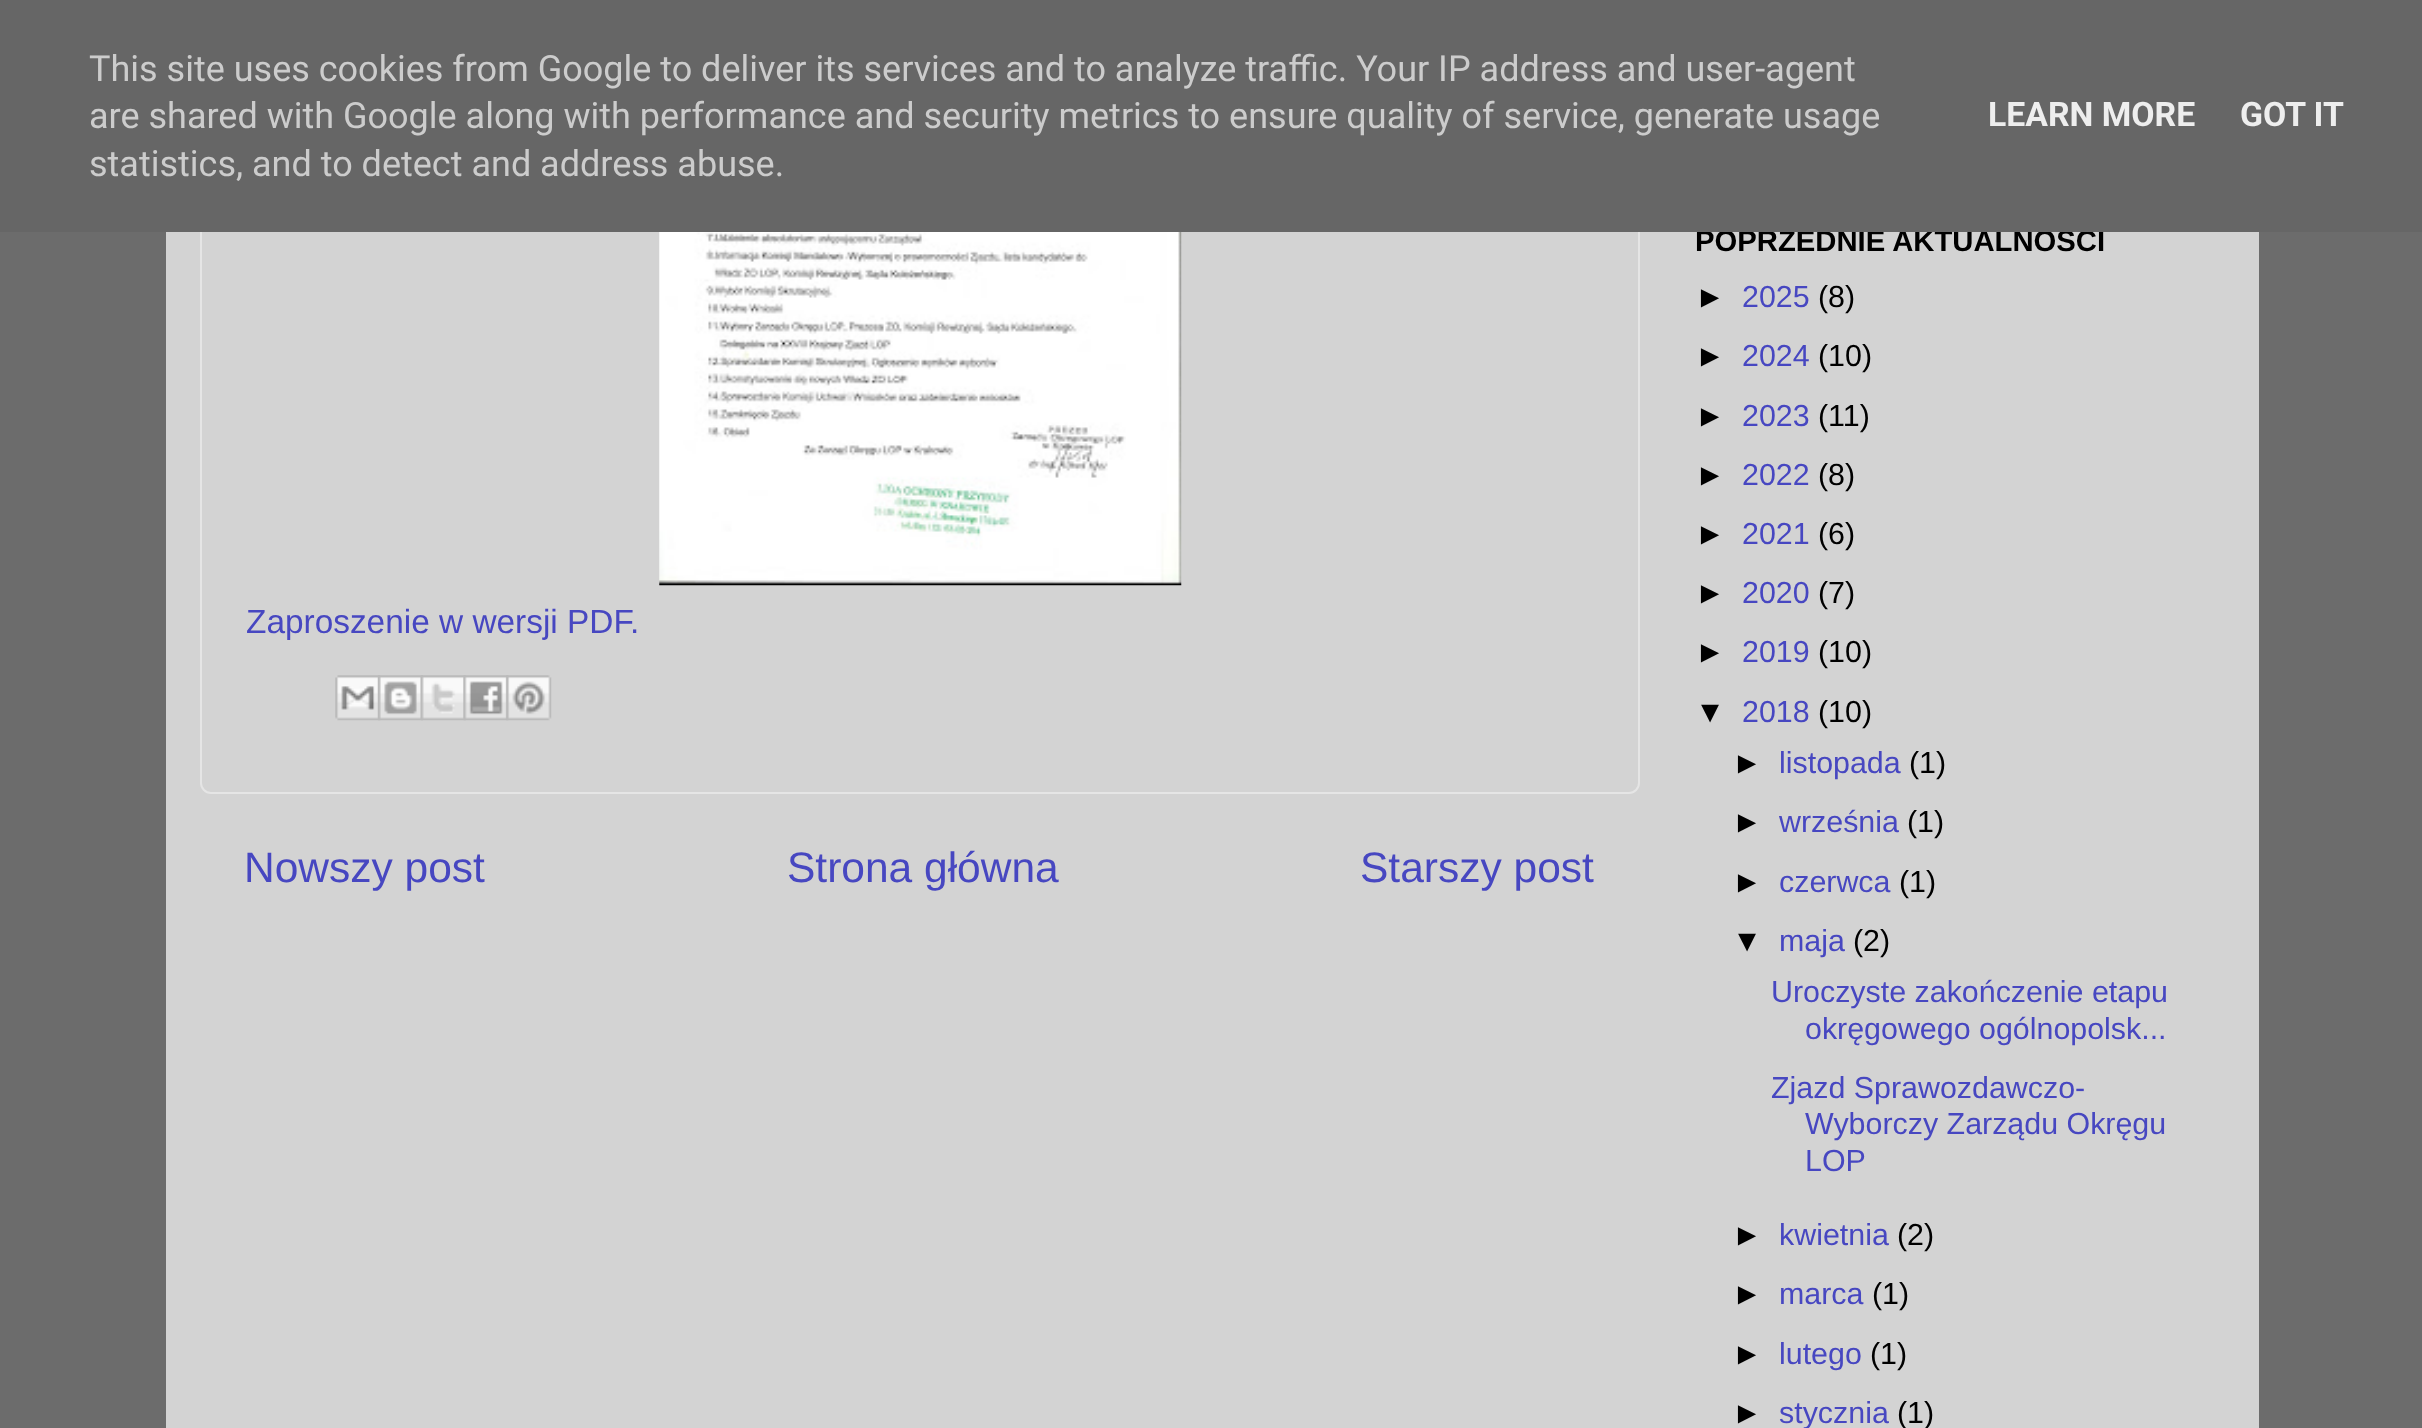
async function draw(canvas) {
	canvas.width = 2422;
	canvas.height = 1428;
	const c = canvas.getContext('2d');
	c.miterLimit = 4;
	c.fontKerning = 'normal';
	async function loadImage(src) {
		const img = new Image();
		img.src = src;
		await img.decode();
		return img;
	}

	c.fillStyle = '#6c6c6c';
	c.fillRect(0, 0, 2422, 1428);
	c.fillStyle = '#ffffffb3';
	c.fillRect(166, 232, 2093, 1196);
	c.beginPath();
	c.roundRect(201, -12, 1438, 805, 10);
	c.strokeStyle = '#e5e5e5';
	c.lineWidth = 2;
	c.stroke();
	c.font = 'bold 29.25px Liberation Sans';
	c.fillStyle = '#000';
	c.fillText('POPRZEDNIE AKTUALNOŚCI', 1695, 251);
	c.fillStyle = '#666';
	c.fillRect(0, 0, 2422, 232);
	c.font = '36px Roboto';
	c.fillStyle = '#ccc';
	for (const [text, x, y] of [
		['This site uses cookies from Google to deliver its services and to analyze traffic. Your IP address and user-agent', 89, 81],
		['are shared with Google along with performance and security metrics to ensure quality of service, generate usage', 89, 128],
		['statistics, and to detect and address abuse.', 89, 176],
	]) {
		c.fillText(text, x, y);
	}
	c.font = 'bold 33.75px Roboto';
	c.fillStyle = '#eee';
	c.fillText('LEARN MORE', 1988, 126);
	c.fillText('GOT IT', 2240, 126);
	c.drawImage(await loadImage('img1.png'), 659, 232, 523, 354);
	c.font = '33.4px Liberation Sans';
	c.fillStyle = '#4747c1';
	c.fillText('Zaproszenie w wersji PDF.', 246, 633);
	c.drawImage(await loadImage('img2.png'), 335, 675, 46, 46);
	c.drawImage(await loadImage('img3.png'), 378, 675, 45, 46);
	c.drawImage(await loadImage('img4.png'), 420, 675, 46, 46);
	c.drawImage(await loadImage('img5.png'), 463, 675, 46, 46);
	c.drawImage(await loadImage('img6.png'), 506, 675, 46, 46);
	c.font = '42.5px Liberation Sans';
	for (const [text, x, y] of [
		['Nowszy post', 244, 882],
		['Strona główna', 787, 882],
		['Starszy post', 1360, 882],
	]) {
		c.fillText(text, x, y);
	}
	c.font = '30.4px Liberation Sans';
	c.fillStyle = '#000';
	c.fillText('►', 1695, 307);
	c.fillStyle = '#4747c1';
	c.fillText('2025', 1742, 307);
	c.fillStyle = '#000';
	c.fillText('(8)', 1818, 307);
	c.fillText('►', 1695, 366);
	c.fillStyle = '#4747c1';
	c.fillText('2024', 1742, 366);
	c.fillStyle = '#000';
	c.fillText('(10)', 1818, 366);
	c.fillText('►', 1695, 426);
	c.fillStyle = '#4747c1';
	c.fillText('2023', 1742, 426);
	c.fillStyle = '#000';
	c.fillText('(11)', 1818, 426);
	c.fillText('►', 1695, 485);
	c.fillStyle = '#4747c1';
	c.fillText('2022', 1742, 485);
	c.fillStyle = '#000';
	c.fillText('(8)', 1818, 485);
	c.fillText('►', 1695, 544);
	c.fillStyle = '#4747c1';
	c.fillText('2021', 1742, 544);
	c.fillStyle = '#000';
	c.fillText('(6)', 1818, 544);
	c.fillText('►', 1695, 603);
	c.fillStyle = '#4747c1';
	c.fillText('2020', 1742, 603);
	c.fillStyle = '#000';
	c.fillText('(7)', 1818, 603);
	c.fillText('►', 1695, 662);
	c.fillStyle = '#4747c1';
	c.fillText('2019', 1742, 662);
	c.fillStyle = '#000';
	c.fillText('(10)', 1818, 662);
	c.fillText('▼', 1695, 722);
	c.fillStyle = '#4747c1';
	c.fillText('2018', 1742, 722);
	c.fillStyle = '#000';
	c.fillText('(10)', 1818, 722);
	c.fillText('►', 1732, 773);
	c.fillStyle = '#4747c1';
	c.fillText('listopada', 1779, 773);
	c.fillStyle = '#000';
	c.fillText('(1)', 1909, 773);
	c.fillText('►', 1732, 832);
	c.fillStyle = '#4747c1';
	c.fillText('września', 1779, 832);
	c.fillStyle = '#000';
	c.fillText('(1)', 1907, 832);
	c.fillText('►', 1732, 892);
	c.fillStyle = '#4747c1';
	c.fillText('czerwca', 1779, 892);
	c.fillStyle = '#000';
	c.fillText('(1)', 1899, 892);
	c.fillText('▼', 1732, 951);
	c.fillStyle = '#4747c1';
	c.fillText('maja', 1779, 951);
	c.fillStyle = '#000';
	c.fillText('(2)', 1853, 951);
	c.fillStyle = '#4747c1';
	for (const [text, x, y] of [
		['Uroczyste zakończenie etapu', 1771, 1002],
		['okręgowego ogólnopolsk...', 1805, 1039],
		['Zjazd Sprawozdawczo-', 1771, 1098],
		['Wyborczy Zarządu Okręgu', 1805, 1134],
		['LOP', 1805, 1171],
	]) {
		c.fillText(text, x, y);
	}
	c.fillStyle = '#000';
	c.fillText('►', 1732, 1245);
	c.fillStyle = '#4747c1';
	c.fillText('kwietnia', 1779, 1245);
	c.fillStyle = '#000';
	c.fillText('(2)', 1897, 1245);
	c.fillText('►', 1732, 1304);
	c.fillStyle = '#4747c1';
	c.fillText('marca', 1779, 1304);
	c.fillStyle = '#000';
	c.fillText('(1)', 1872, 1304);
	c.fillText('►', 1732, 1364);
	c.fillStyle = '#4747c1';
	c.fillText('lutego', 1779, 1364);
	c.fillStyle = '#000';
	c.fillText('(1)', 1870, 1364);
	c.fillText('►', 1732, 1423);
	c.fillStyle = '#4747c1';
	c.fillText('stycznia', 1779, 1423);
	c.fillStyle = '#000';
	c.fillText('(1)', 1897, 1423);
}

draw(document.querySelector('canvas'));
